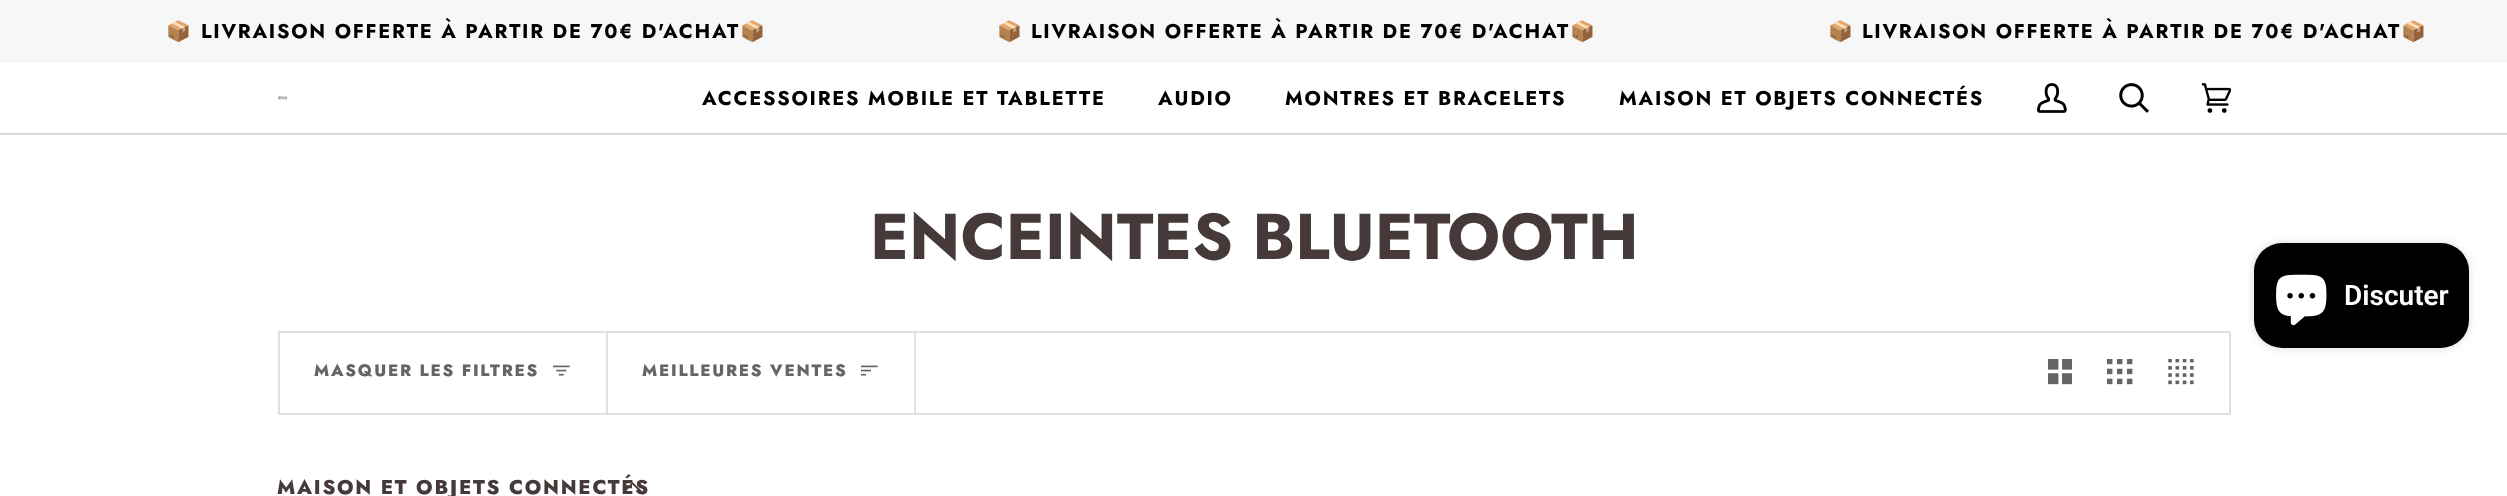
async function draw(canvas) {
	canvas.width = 2507;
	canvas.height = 496;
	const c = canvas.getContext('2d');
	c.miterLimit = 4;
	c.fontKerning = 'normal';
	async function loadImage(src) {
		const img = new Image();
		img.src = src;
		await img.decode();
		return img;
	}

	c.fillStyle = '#fff';
	c.fillRect(0, 0, 2507, 496);
	c.fillStyle = '#f7f7f7';
	c.fillRect(0, 0, 2507, 63);
	c.letterSpacing = '1.75px';
	c.font = 'bold 19.95px Noto Color Emoji';
	c.fillStyle = '#000';
	c.fillText('📦', 166, 38);
	c.font = 'bold 19.95px Jost';
	c.fillText('LIVRAISON OFFERTE À PARTIR DE 70€ D\'ACHAT', 201, 38);
	c.font = 'bold 19.95px Noto Color Emoji';
	c.fillText('📦', 740, 38);
	c.fillText('📦', 997, 38);
	c.font = 'bold 19.95px Jost';
	c.fillText('LIVRAISON OFFERTE À PARTIR DE 70€ D\'ACHAT', 1031, 38);
	c.font = 'bold 19.95px Noto Color Emoji';
	c.fillText('📦', 1570, 38);
	c.fillText('📦', 1828, 38);
	c.font = 'bold 19.95px Jost';
	c.fillText('LIVRAISON OFFERTE À PARTIR DE 70€ D\'ACHAT', 1862, 38);
	c.font = 'bold 19.95px Noto Color Emoji';
	c.fillText('📦', 2401, 38);
	c.fillStyle = '#d7d7d7';
	c.fillRect(0, 133, 2507, 2);
	c.drawImage(await loadImage('img1.png'), 278, 96, 9, 4);
	c.font = 'bold 19.95px Jost';
	c.fillStyle = '#000';
	for (const [text, x, y] of [
		['ACCESSOIRES MOBILE ET TABLETTE', 702, 105],
		['AUDIO', 1158, 105],
		['MONTRES ET BRACELETS', 1285, 105],
		['MAISON ET OBJETS CONNECTÉS', 1619, 105],
	]) {
		c.fillText(text, x, y);
	}
	c.drawImage(await loadImage('img2.png'), 2037, 83, 30, 30);
	c.drawImage(await loadImage('img3.png'), 2119, 83, 30, 30);
	c.drawImage(await loadImage('img4.png'), 2202, 83, 29, 30);
	c.letterSpacing = '0px';
	c.font = 'bold 64.75px Jost';
	c.fillStyle = '#453939';
	c.fillText('ENCEINTES BLUETOOTH', 870, 259);
	c.strokeStyle = '#e0e0e0';
	c.lineWidth = 2;
	c.strokeRect(279, 332, 1951, 82);
	c.fillStyle = '#e0e0e0';
	c.fillRect(606, 333, 2, 80);
	c.letterSpacing = '1.75px';
	c.font = '800 16.6px Jost';
	c.fillStyle = '#656565';
	c.fillText('MASQUER LES FILTRES', 314, 376);
	c.drawImage(await loadImage('img5.png'), 553, 365, 17, 11);
	c.fillStyle = '#e0e0e0';
	c.fillRect(914, 333, 2, 80);
	c.fillStyle = '#656565';
	c.fillText('MEILLEURES VENTES', 642, 376);
	c.drawImage(await loadImage('img6.png'), 861, 365, 17, 11);
	c.drawImage(await loadImage('img7.png'), 2048, 359, 24, 26);
	c.drawImage(await loadImage('img8.png'), 2107, 359, 26, 26);
	c.drawImage(await loadImage('img9.png'), 2168, 359, 26, 26);
	c.font = '800 19.95px Jost';
	c.fillStyle = '#453939';
	c.fillText('MAISON ET OBJETS CONNECTÉS', 277, 494);
	c.beginPath();
	c.moveTo(632.5, 484.5);
	c.lineTo(624.5, 492.5);
	c.lineTo(623.5, 491);
	c.lineTo(632.5, 482);
	c.lineTo(642, 491);
	c.lineTo(640.5, 492.5);
	c.closePath();
	c.fill('evenodd');
	c.fillStyle = '#00000026';
	c.filter = 'blur(4.5px)';
	c.beginPath();
	c.roundRect(2254, 243, 215, 105, 28);
	c.fill();
	c.filter = 'none';
	c.fillStyle = '#000';
	c.beginPath();
	c.roundRect(2254, 243, 215, 105, 28);
	c.fill();
	c.drawImage(await loadImage('img10.png'), 2276, 274, 51, 52);
	c.letterSpacing = '0px';
	c.font = '600 28px Roboto';
	c.fillStyle = '#fff';
	c.fillText('Discuter', 2344, 305);
}

draw(document.querySelector('canvas'));
